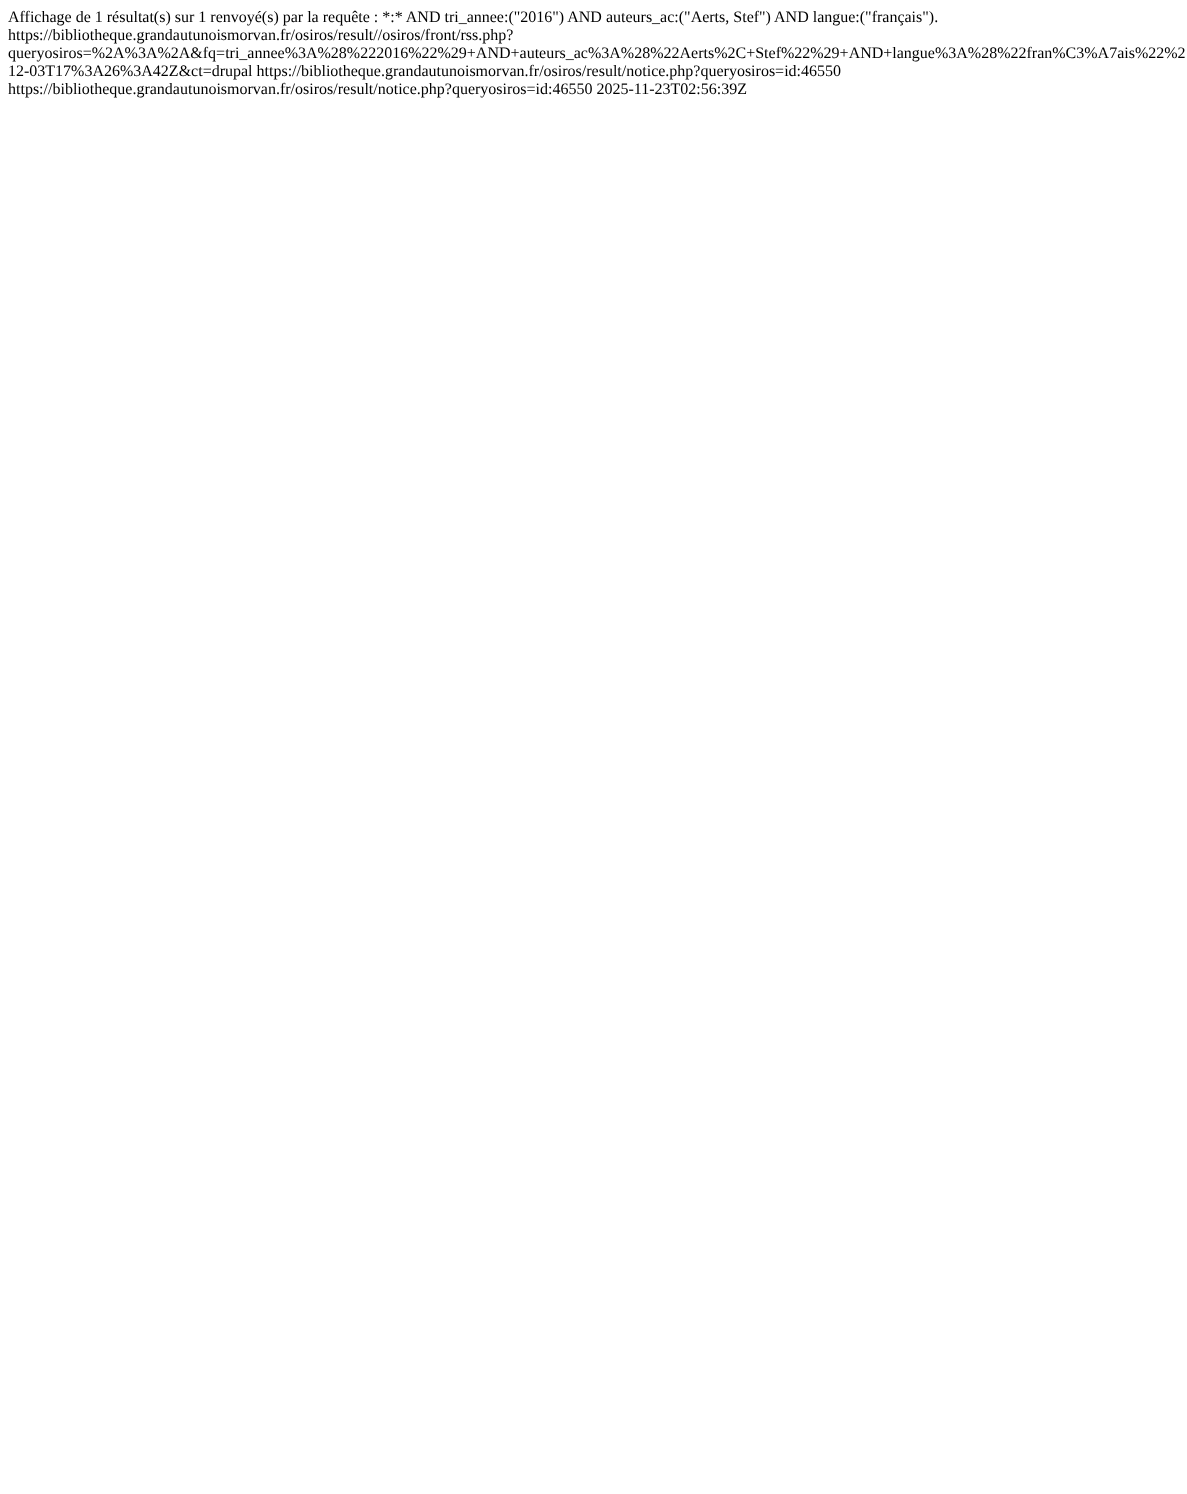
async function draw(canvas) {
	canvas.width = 1187;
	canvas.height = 1494;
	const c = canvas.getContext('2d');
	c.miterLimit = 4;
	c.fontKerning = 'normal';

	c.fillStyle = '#fff';
	c.fillRect(0, 0, 1187, 1494);
	c.font = '16px Liberation Serif';
	c.fillStyle = '#000';
	for (const [text, x, y] of [
		['Affichage de 1 résultat(s) sur 1 renvoyé(s) par la requête : *:* AND tri_annee:("2016") AND auteurs_ac:("Aerts, Stef") AND langue:("français").', 8, 22],
		['https://bibliotheque.grandautunoismorvan.fr/osiros/result//osiros/front/rss.php?', 8, 40],
		['queryosiros=%2A%3A%2A&fq=tri_annee%3A%28%222016%22%29+AND+auteurs_ac%3A%28%22Aerts%2C+Stef%22%29+AND+langue%3A%28%22fran%C3%A7ais%22%2', 8, 58],
		['12-03T17%3A26%3A42Z&ct=drupal https://bibliotheque.grandautunoismorvan.fr/osiros/result/notice.php?queryosiros=id:46550', 8, 76],
		['https://bibliotheque.grandautunoismorvan.fr/osiros/result/notice.php?queryosiros=id:46550 2025-11-23T02:56:39Z', 8, 94],
	]) {
		c.fillText(text, x, y);
	}
}

draw(document.querySelector('canvas'));
